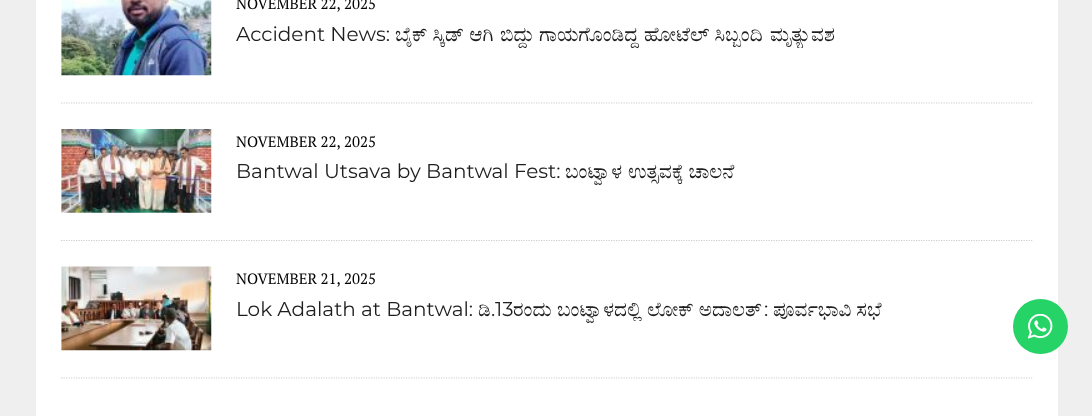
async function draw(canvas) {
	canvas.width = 1092;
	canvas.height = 416;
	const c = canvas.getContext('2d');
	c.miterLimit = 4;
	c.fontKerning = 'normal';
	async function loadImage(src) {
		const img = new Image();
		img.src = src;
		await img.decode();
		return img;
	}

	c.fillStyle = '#efefef';
	c.fillRect(0, 0, 1092, 416);
	c.fillStyle = '#fff';
	c.fillRect(36, 0, 1022, 416);
	c.drawImage(await loadImage('img1.png'), 61, 0, 151, 76);
	c.font = '15px PT Serif';
	c.fillStyle = '#000';
	c.fillText('NOVEMBER 22, 2025', 236, 9);
	c.font = '20px Montserrat';
	c.fillStyle = '#1f1e1e';
	c.fillText('Accident News:', 236, 41);
	c.font = '20px FreeSerif';
	c.fillText('ಬೈಕ್ ಸ್ಕಿಡ್ ಆಗಿ', 395, 41);
	c.save();
	c.beginPath();
	c.rect(236, 23, 797, 25);
	c.clip();
	c.fillText('ಬಿದ್ದು', 500, 41);
	c.restore();
	c.fillText('ಗಾಯಗೊಂಡಿದ್ದ ಹೋಟೆಲ್ ಸಿಬ್ಬಂದಿ', 539, 41);
	c.save();
	c.beginPath();
	c.rect(236, 23, 797, 25);
	c.clip();
	c.fillText('ಮೃತ್ಯುವಶ', 770, 41);
	c.restore();
	c.beginPath();
	c.moveTo(61, 103);
	c.lineTo(1032.5, 103);
	c.strokeStyle = '#cdcdcd';
	c.lineWidth = 1.2;
	c.setLineDash([1.25, 1.25]);
	c.stroke();
	c.drawImage(await loadImage('img2.png'), 61, 129, 151, 84);
	c.font = '15px PT Serif';
	c.fillStyle = '#000';
	c.fillText('NOVEMBER 22, 2025', 236, 147);
	c.font = '20px Montserrat';
	c.fillStyle = '#1f1e1e';
	c.fillText('Bantwal Utsava by Bantwal Fest:', 236, 178);
	c.save();
	c.beginPath();
	c.rect(236, 160, 797, 25);
	c.clip();
	c.font = '20px FreeSerif';
	c.fillText('ಬಂಟ್ವಾಳ', 565, 178);
	c.restore();
	c.font = '20px FreeSerif';
	c.fillText('ಉತ್ಸವಕ್ಕೆ ಚಾಲನೆ', 628, 178);
	c.beginPath();
	c.moveTo(61, 240.5);
	c.lineTo(1032.5, 240.5);
	c.stroke();
	c.drawImage(await loadImage('img3.png'), 61, 266, 151, 85);
	c.font = '15px PT Serif';
	c.fillStyle = '#000';
	c.fillText('NOVEMBER 21, 2025', 236, 284);
	c.font = '20px Montserrat';
	c.fillStyle = '#1f1e1e';
	c.fillText('Lok Adalath at Bantwal:', 236, 316);
	c.font = '20px FreeSerif';
	c.fillText('ಡಿ', 478, 316);
	c.font = '20px Montserrat';
	c.fillText('.13', 491, 316);
	c.font = '20px FreeSerif';
	c.fillText('ರಂದು', 513, 316);
	c.save();
	c.beginPath();
	c.rect(236, 298, 797, 25);
	c.clip();
	c.fillText('ಬಂಟ್ವಾಳದಲ್ಲಿ', 557, 316);
	c.restore();
	c.fillText('ಲೋಕ್ ಅದಾಲತ್', 647, 316);
	c.font = '20px Montserrat';
	c.fillText(':', 764, 316);
	c.font = '20px FreeSerif';
	c.fillText('ಪೂರ್ವಭಾವಿ ಸಭೆ', 773, 316);
	c.beginPath();
	c.moveTo(61, 378);
	c.lineTo(1032.5, 378);
	c.stroke();
	c.fillStyle = '#25d366';
	c.beginPath();
	c.arc(1040.5, 326.5, 27.5, 0, 2 * Math.PI);
	c.fill();
	c.drawImage(await loadImage('img4.png'), 1028, 314, 25, 25);
}

draw(document.querySelector('canvas'));
